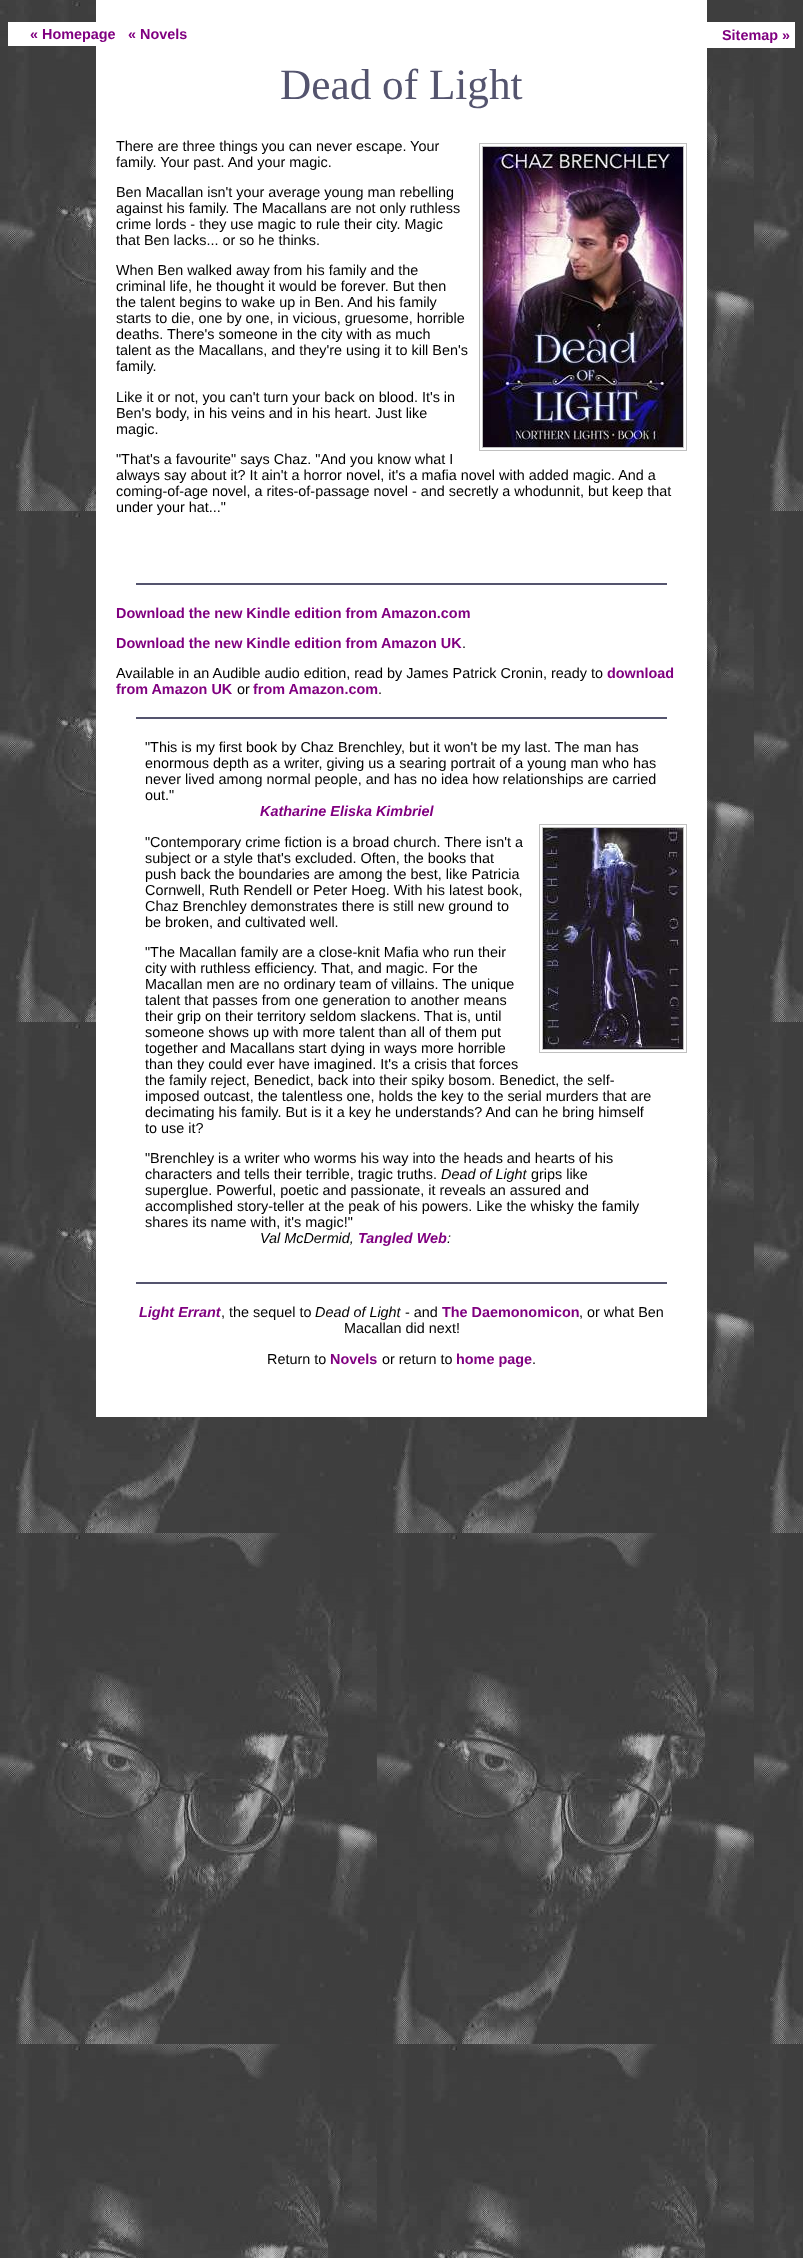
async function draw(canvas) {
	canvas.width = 803;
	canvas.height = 2258;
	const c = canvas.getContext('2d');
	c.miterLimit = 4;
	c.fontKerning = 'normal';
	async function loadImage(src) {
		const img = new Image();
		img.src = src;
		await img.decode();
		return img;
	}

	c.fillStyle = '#fff';
	c.fillRect(0, 0, 803, 2258);
	c.drawImage(await loadImage('img1.png'), 0, 0, 803, 2258);
	c.fillRect(8, 22, 88, 24);
	c.fillRect(96, 0, 611, 1417);
	c.font = 'bold 14.4px Liberation Sans';
	c.fillStyle = '#800080';
	c.fillText('« Homepage', 30, 39);
	c.fillText('« Novels', 128, 39);
	c.fillStyle = '#fff';
	c.fillRect(707, 22, 88, 26);
	c.fillStyle = '#800080';
	c.fillText('Sitemap »', 722, 40);
	c.font = '43.25px Liberation Serif';
	c.fillStyle = '#54546e';
	c.fillText('Dead of Light', 280, 99);
	c.font = '14.4px Liberation Sans';
	c.fillStyle = '#000';
	c.fillText('There are three things you can never escape. Your', 116, 151);
	c.fillText('family. Your past. And your magic.', 116, 167);
	c.strokeStyle = '#c0c0c0';
	c.strokeRect(479.5, 143.5, 207, 307);
	c.strokeRect(482.5, 146.5, 201, 301);
	c.drawImage(await loadImage('img2.png'), 483, 147, 200, 300);
	for (const [text, x, y] of [
		['Ben Macallan isn\'t your average young man rebelling', 116, 197],
		['against his family. The Macallans are not only ruthless', 116, 213],
		['crime lords - they use magic to rule their city. Magic', 116, 229],
		['that Ben lacks... or so he thinks.', 116, 245],
		['When Ben walked away from his family and the', 116, 275],
		['criminal life, he thought it would be forever. But then', 116, 291],
		['the talent begins to wake up in Ben. And his family', 116, 307],
		['starts to die, one by one, in vicious, gruesome, horrible', 116, 323],
		['deaths. There\'s someone in the city with as much', 116, 339],
		['talent as the Macallans, and they\'re using it to kill Ben\'s', 116, 355],
		['family.', 116, 371],
		['Like it or not, you can\'t turn your back on blood. It\'s in', 116, 402],
		['Ben\'s body, in his veins and in his heart. Just like', 116, 418],
		['magic.', 116, 434],
		['"That\'s a favourite" says Chaz. "And you know what I', 116, 464],
		['always say about it? It ain\'t a horror novel, it\'s a mafia novel with added magic. And a', 116, 480],
		['coming-of-age novel, a rites-of-passage novel - and secretly a whodunnit, but keep that', 116, 496],
		['under your hat..."', 116, 512],
	]) {
		c.fillText(text, x, y);
	}
	c.fillStyle = '#54546e';
	c.fillRect(136, 583, 531, 2);
	c.font = 'bold 14.4px Liberation Sans';
	c.fillStyle = '#800080';
	c.fillText('Download the new Kindle edition from Amazon.com', 116, 618);
	c.fillText('Download the new Kindle edition from Amazon UK', 116, 648);
	c.font = '14.4px Liberation Sans';
	c.fillStyle = '#000';
	c.fillText('.', 462, 648);
	c.fillText('Available in an Audible audio edition, read by James Patrick Cronin, ready to', 116, 678);
	c.font = 'bold 14.4px Liberation Sans';
	c.fillStyle = '#800080';
	c.fillText('download', 607, 678);
	c.fillText('from Amazon UK', 116, 694);
	c.font = '14.4px Liberation Sans';
	c.fillStyle = '#000';
	c.fillText('or', 237, 694);
	c.font = 'bold 14.4px Liberation Sans';
	c.fillStyle = '#800080';
	c.fillText('from Amazon.com', 253, 694);
	c.font = '14.4px Liberation Sans';
	c.fillStyle = '#000';
	c.fillText('.', 378, 694);
	c.fillStyle = '#54546e';
	c.fillRect(136, 717, 531, 2);
	c.fillStyle = '#000';
	for (const [text, x, y] of [
		['"This is my first book by Chaz Brenchley, but it won\'t be my last. The man has', 145, 752],
		['enormous depth as a writer, giving us a searing portrait of a young man who has', 145, 768],
		['never lived among normal people, and has no idea how relationships are carried', 145, 784],
		['out."', 145, 800],
	]) {
		c.fillText(text, x, y);
	}
	c.font = 'italic bold 14.4px Liberation Sans';
	c.fillStyle = '#800080';
	c.fillText('Katharine Eliska Kimbriel', 260, 816);
	c.font = '14.4px Liberation Sans';
	c.fillStyle = '#000';
	for (const [text, x, y] of [
		['"Contemporary crime fiction is a broad church. There isn\'t a', 145, 847],
		['subject or a style that\'s excluded. Often, the books that', 145, 863],
		['push back the boundaries are among the best, like Patricia', 145, 879],
		['Cornwell, Ruth Rendell or Peter Hoeg. With his latest book,', 145, 895],
		['Chaz Brenchley demonstrates there is still new ground to', 145, 911],
		['be broken, and cultivated well.', 145, 927],
	]) {
		c.fillText(text, x, y);
	}
	c.strokeRect(539.5, 824.5, 147, 228);
	c.strokeRect(542.5, 827.5, 141, 222);
	c.drawImage(await loadImage('img3.png'), 543, 828, 140, 221);
	for (const [text, x, y] of [
		['"The Macallan family are a close-knit Mafia who run their', 145, 957],
		['city with ruthless efficiency. That, and magic. For the', 145, 973],
		['Macallan men are no ordinary team of villains. The unique', 145, 989],
		['talent that passes from one generation to another means', 145, 1005],
		['their grip on their territory seldom slackens. That is, until', 145, 1021],
		['someone shows up with more talent than all of them put', 145, 1037],
		['together and Macallans start dying in ways more horrible', 145, 1053],
		['than they could ever have imagined. It\'s a crisis that forces', 145, 1069],
		['the family reject, Benedict, back into their spiky bosom. Benedict, the self-', 145, 1085],
		['imposed outcast, the talentless one, holds the key to the serial murders that are', 145, 1101],
		['decimating his family. But is it a key he understands? And can he bring himself', 145, 1117],
		['to use it?', 145, 1133],
		['"Brenchley is a writer who worms his way into the heads and hearts of his', 145, 1163],
		['characters and tells their terrible, tragic truths.', 145, 1179],
	]) {
		c.fillText(text, x, y);
	}
	c.font = 'italic 14.4px Liberation Sans';
	c.fillText('Dead of Light', 441, 1179);
	c.font = '14.4px Liberation Sans';
	for (const [text, x, y] of [
		['grips like', 531, 1179],
		['superglue. Powerful, poetic and passionate, it reveals an assured and', 145, 1195],
		['accomplished story-teller at the peak of his powers. Like the whisky the family', 145, 1211],
		['shares its name with, it\'s magic!"', 145, 1227],
	]) {
		c.fillText(text, x, y);
	}
	c.font = 'italic 14.4px Liberation Sans';
	c.fillText('Val McDermid,', 260, 1243);
	c.font = 'italic bold 14.4px Liberation Sans';
	c.fillStyle = '#800080';
	c.fillText('Tangled Web', 358, 1243);
	c.font = 'italic 14.4px Liberation Sans';
	c.fillStyle = '#000';
	c.fillText(':', 447, 1243);
	c.fillStyle = '#54546e';
	c.fillRect(136, 1282, 531, 2);
	c.font = 'italic bold 14.4px Liberation Sans';
	c.fillStyle = '#800080';
	c.fillText('Light Errant', 139, 1317);
	c.font = '14.4px Liberation Sans';
	c.fillStyle = '#000';
	c.fillText(', the sequel to', 221, 1317);
	c.font = 'italic 14.4px Liberation Sans';
	c.fillText('Dead of Light', 315, 1317);
	c.font = '14.4px Liberation Sans';
	c.fillText('- and', 405, 1317);
	c.font = 'bold 14.4px Liberation Sans';
	c.fillStyle = '#800080';
	c.fillText('The Daemonomicon', 442, 1317);
	c.font = '14.4px Liberation Sans';
	c.fillStyle = '#000';
	for (const [text, x, y] of [
		[', or what Ben', 579, 1317],
		['Macallan did next!', 344, 1333],
		['Return to', 267, 1364],
	]) {
		c.fillText(text, x, y);
	}
	c.font = 'bold 14.4px Liberation Sans';
	c.fillStyle = '#800080';
	c.fillText('Novels', 330, 1364);
	c.font = '14.4px Liberation Sans';
	c.fillStyle = '#000';
	c.fillText('or return to', 382, 1364);
	c.font = 'bold 14.4px Liberation Sans';
	c.fillStyle = '#800080';
	c.fillText('home page', 456, 1364);
	c.font = '14.4px Liberation Sans';
	c.fillStyle = '#000';
	c.fillText('.', 532, 1364);
}

draw(document.querySelector('canvas'));
